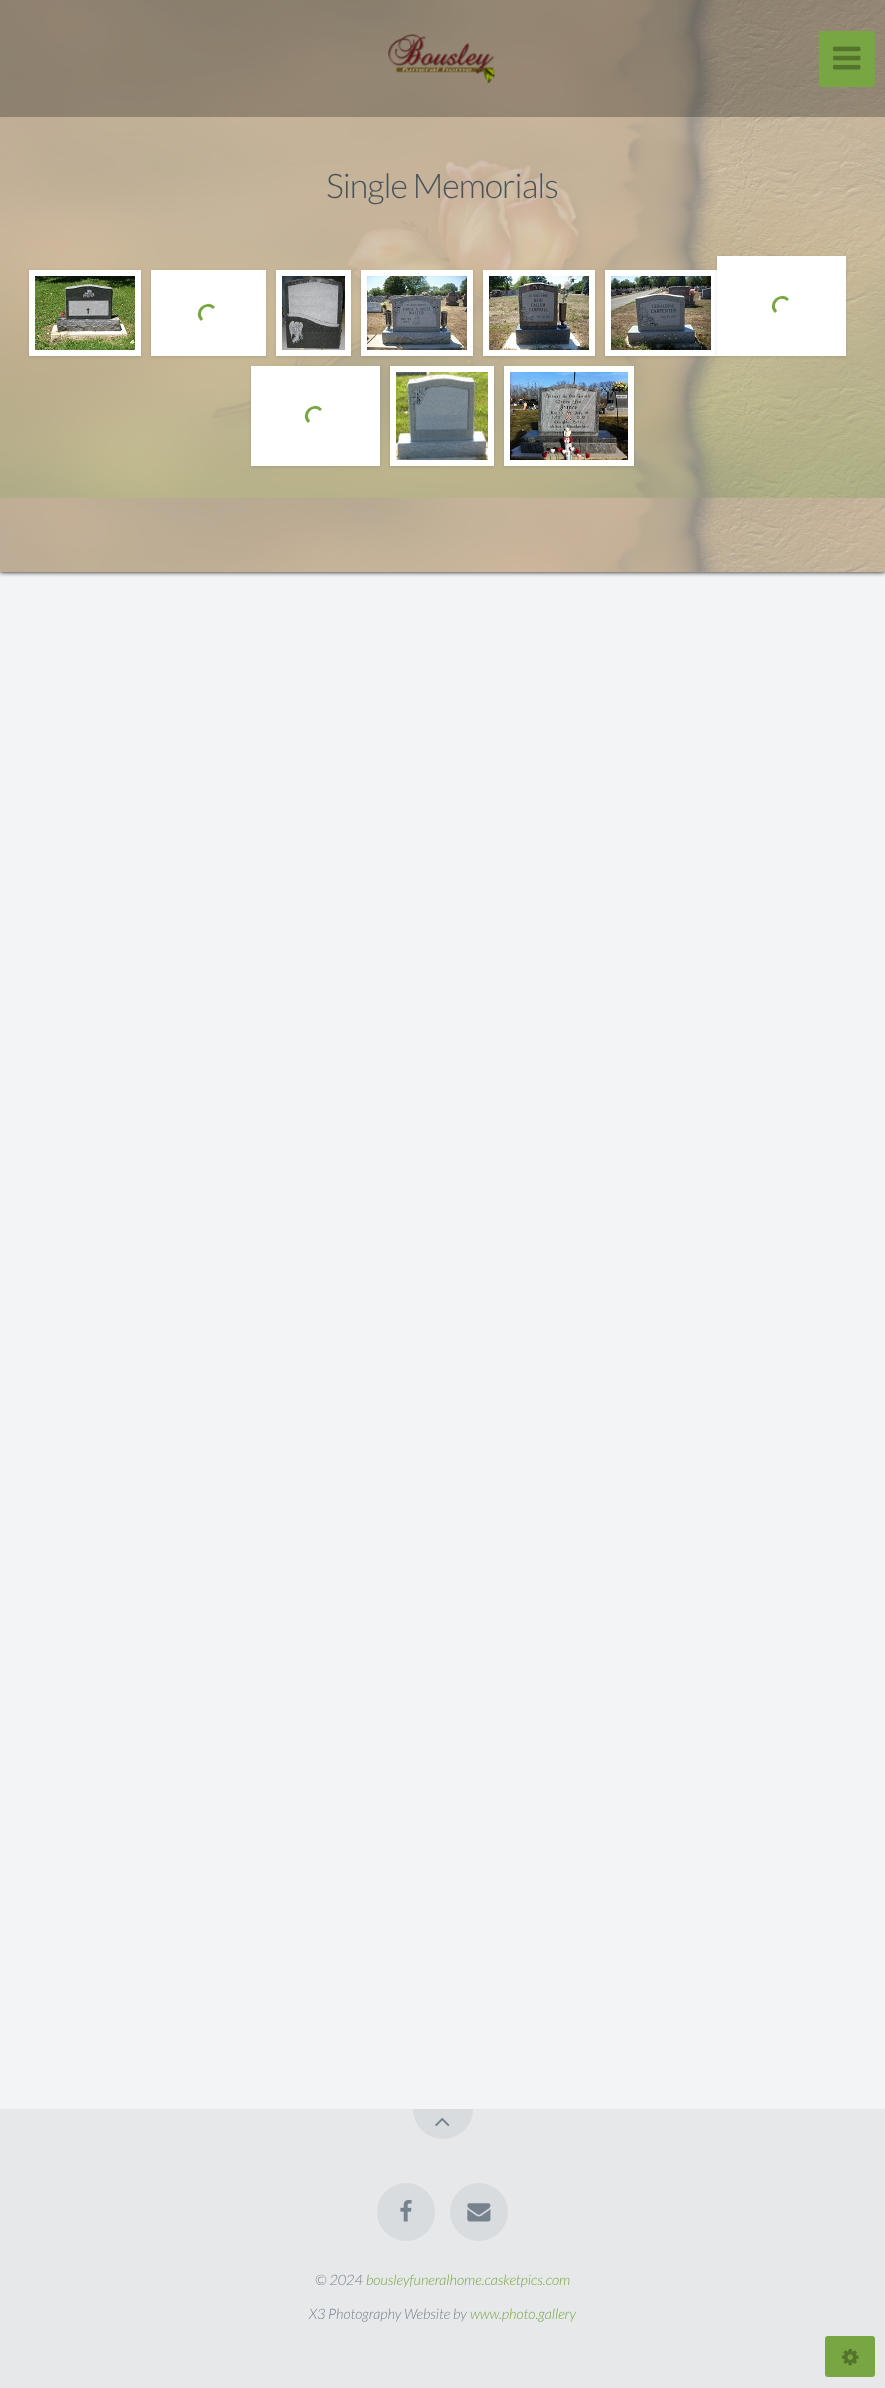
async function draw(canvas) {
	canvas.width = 885;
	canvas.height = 2388;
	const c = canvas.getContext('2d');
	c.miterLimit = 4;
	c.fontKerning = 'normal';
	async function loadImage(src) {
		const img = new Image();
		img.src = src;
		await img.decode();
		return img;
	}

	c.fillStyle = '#f3f4f5';
	c.fillRect(0, 0, 885, 2388);
	c.fillStyle = '#000';
	c.filter = 'blur(2.5px)';
	c.beginPath();
	c.rect(0, 0, 885, 572);
	c.fill();
	c.filter = 'none';
	c.drawImage(await loadImage('img2.png'), 0, 0, 885, 572);
	c.fillStyle = '#00000040';
	c.fillRect(0, 0, 885, 117);
	c.fillStyle = '#78a642';
	c.beginPath();
	c.roundRect(819, 31, 56, 56, 3);
	c.fill();
	c.drawImage(await loadImage('img1.png'), 833, 46, 28, 24);
	c.drawImage(await loadImage('img3.png'), 388, 34, 107, 49);
	c.letterSpacing = '-1px';
	c.font = '300 34px Lato';
	c.fillStyle = '#48545a';
	c.fillText('Single Memorials', 326, 198);
	c.fillStyle = '#0000001a';
	c.filter = 'blur(1.5px)';
	c.beginPath();
	c.rect(29, 271, 112, 86);
	c.fill();
	c.filter = 'none';
	c.fillStyle = '#fff';
	c.fillRect(29, 270, 112, 86);
	c.drawImage(await loadImage('img4.png'), 35, 276, 100, 74);
	c.fillStyle = '#0000001a';
	c.filter = 'blur(1.5px)';
	c.beginPath();
	c.rect(151, 271, 115, 86);
	c.fill();
	c.filter = 'none';
	c.fillStyle = '#fff';
	c.fillRect(151, 270, 115, 86);
	c.beginPath();
	c.moveTo(202, 320);
	c.bezierCurveTo(194, 312, 206, 300, 214, 308);
	c.strokeStyle = '#78a642';
	c.lineWidth = 3;
	c.stroke();
	c.fillStyle = '#0000001a';
	c.filter = 'blur(1.5px)';
	c.beginPath();
	c.rect(276, 271, 75, 86);
	c.fill();
	c.filter = 'none';
	c.fillStyle = '#fff';
	c.fillRect(276, 270, 75, 86);
	c.drawImage(await loadImage('img5.png'), 282, 276, 63, 74);
	c.fillStyle = '#0000001a';
	c.filter = 'blur(1.5px)';
	c.beginPath();
	c.rect(361, 271, 112, 86);
	c.fill();
	c.filter = 'none';
	c.fillStyle = '#fff';
	c.fillRect(361, 270, 112, 86);
	c.drawImage(await loadImage('img6.png'), 367, 276, 100, 74);
	c.fillStyle = '#0000001a';
	c.filter = 'blur(1.5px)';
	c.beginPath();
	c.rect(483, 271, 112, 86);
	c.fill();
	c.filter = 'none';
	c.fillStyle = '#fff';
	c.fillRect(483, 270, 112, 86);
	c.drawImage(await loadImage('img7.png'), 489, 276, 100, 74);
	c.fillStyle = '#0000001a';
	c.filter = 'blur(1.5px)';
	c.beginPath();
	c.rect(605, 271, 112, 86);
	c.fill();
	c.filter = 'none';
	c.fillStyle = '#fff';
	c.fillRect(605, 270, 112, 86);
	c.drawImage(await loadImage('img8.png'), 611, 276, 100, 74);
	c.fillStyle = '#0000001a';
	c.filter = 'blur(1.5px)';
	c.beginPath();
	c.rect(717, 257, 129, 100);
	c.fill();
	c.filter = 'none';
	c.fillStyle = '#fff';
	c.fillRect(717, 256, 129, 100);
	c.beginPath();
	c.moveTo(776, 312);
	c.bezierCurveTo(768, 304, 780, 292, 788, 300);
	c.stroke();
	c.fillStyle = '#0000001a';
	c.filter = 'blur(1.5px)';
	c.beginPath();
	c.rect(251, 367, 129, 100);
	c.fill();
	c.filter = 'none';
	c.fillStyle = '#fff';
	c.fillRect(251, 366, 129, 100);
	c.beginPath();
	c.moveTo(309, 422);
	c.bezierCurveTo(301, 414, 313, 402, 321, 410);
	c.stroke();
	c.fillStyle = '#0000001a';
	c.filter = 'blur(1.5px)';
	c.beginPath();
	c.rect(390, 367, 104, 100);
	c.fill();
	c.filter = 'none';
	c.fillStyle = '#fff';
	c.fillRect(390, 366, 104, 100);
	c.drawImage(await loadImage('img9.png'), 396, 372, 92, 88);
	c.fillStyle = '#0000001a';
	c.filter = 'blur(1.5px)';
	c.beginPath();
	c.rect(504, 367, 130, 100);
	c.fill();
	c.filter = 'none';
	c.fillStyle = '#fff';
	c.fillRect(504, 366, 130, 100);
	c.drawImage(await loadImage('img10.png'), 510, 372, 118, 88);
	c.fillStyle = '#e6e8ea';
	c.fillRect(0, 2109, 885, 279);
	c.fillStyle = '#d8dcdf';
	c.beginPath();
	c.roundRect(413, 2109, 60, 30, [0, 0, 30, 30]);
	c.fill();
	c.drawImage(await loadImage('img11.png'), 435, 2117, 15, 10);
	c.beginPath();
	c.arc(406, 2212, 29, 0, 2 * Math.PI);
	c.fill();
	c.drawImage(await loadImage('img12.png'), 400, 2200, 12, 22);
	c.beginPath();
	c.arc(479, 2212, 29, 0, 2 * Math.PI);
	c.fill();
	c.drawImage(await loadImage('img13.png'), 467, 2203, 24, 19);
	c.letterSpacing = '0px';
	c.font = 'italic 300 14.4px Lato';
	c.fillStyle = '#76828d';
	c.fillText('© 2024', 315, 2285);
	c.fillStyle = '#78a642';
	c.fillText('bousleyfuneralhome.casketpics.com', 366, 2285);
	c.fillStyle = '#76828d';
	c.fillText('X3 Photography Website by', 309, 2319);
	c.fillStyle = '#78a642';
	c.fillText('www.photo.gallery', 470, 2319);
	c.beginPath();
	c.roundRect(825, 2336, 50, 41, 3);
	c.fill();
	c.drawImage(await loadImage('img14.png'), 842, 2349, 17, 17);
}

draw(document.querySelector('canvas'));
